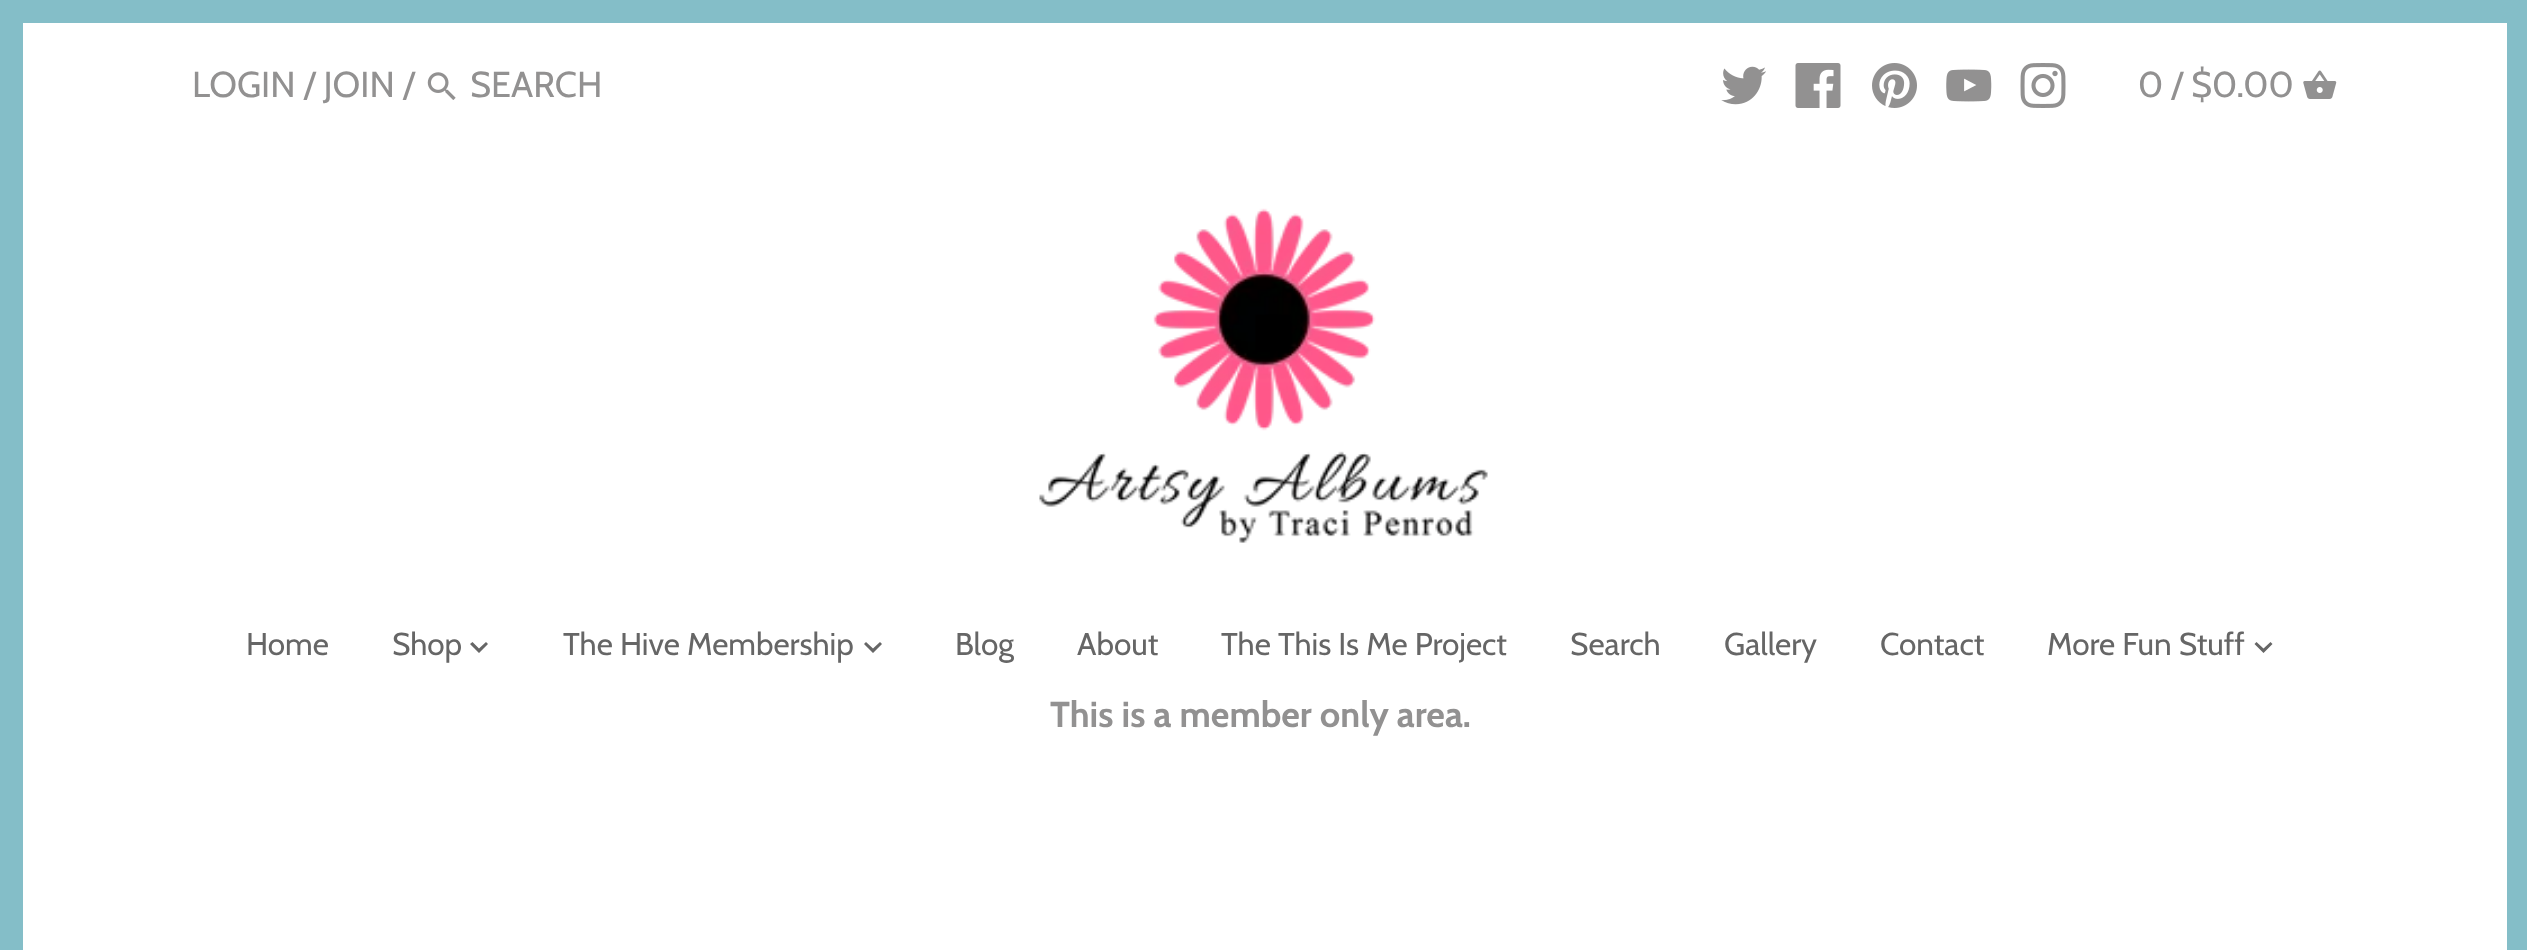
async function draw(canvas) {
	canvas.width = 2527;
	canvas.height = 950;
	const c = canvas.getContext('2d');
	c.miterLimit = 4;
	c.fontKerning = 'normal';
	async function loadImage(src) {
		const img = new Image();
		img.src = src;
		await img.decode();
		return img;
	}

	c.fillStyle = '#fff';
	c.fillRect(0, 0, 2527, 950);
	c.strokeStyle = '#84bec8';
	c.lineWidth = 23;
	c.strokeRect(11.5, 11.5, 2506, 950);
	c.fillRect(2506, 23, 1, 927);
	c.font = '36px Cabin';
	c.fillStyle = '#929191';
	c.fillText('LOGIN / JOIN /', 192, 97);
	c.drawImage(await loadImage('img1.png'), 427, 72, 29, 28);
	c.fillText('SEARCH', 470, 97);
	c.drawImage(await loadImage('img2.png'), 1721, 66, 45, 39);
	c.drawImage(await loadImage('img3.png'), 1795, 63, 46, 45);
	c.drawImage(await loadImage('img4.png'), 1872, 63, 45, 45);
	c.drawImage(await loadImage('img5.png'), 1946, 69, 46, 33);
	c.drawImage(await loadImage('img6.png'), 2020, 63, 46, 45);
	c.fillText('0 / $0.00', 2138, 97);
	c.drawImage(await loadImage('img7.png'), 2303, 70, 34, 29);
	c.drawImage(await loadImage('img8.png'), 1039, 208, 449, 335);
	c.font = '31.5px Cabin';
	c.fillStyle = '#666';
	c.fillText('Home', 246, 655);
	c.fillText('Shop', 392, 655);
	c.beginPath();
	c.moveTo(472.5, 642);
	c.lineTo(479, 648.5);
	c.lineTo(486, 642);
	c.lineTo(488, 644);
	c.lineTo(479, 653);
	c.lineTo(470, 644);
	c.closePath();
	c.fill();
	c.fillText('The Hive Membership', 563, 655);
	c.beginPath();
	c.moveTo(866, 642);
	c.lineTo(873, 648.5);
	c.lineTo(880, 642);
	c.lineTo(882, 644);
	c.lineTo(873, 653);
	c.lineTo(864, 644);
	c.closePath();
	c.fill();
	for (const [text, x, y] of [
		['Blog', 955, 655],
		['About', 1077, 655],
		['The This Is Me Project', 1221, 655],
		['Search', 1570, 655],
		['Gallery', 1724, 655],
		['Contact', 1880, 655],
		['More Fun Stuff', 2047, 655],
	]) {
		c.fillText(text, x, y);
	}
	c.beginPath();
	c.moveTo(2256.5, 642);
	c.lineTo(2263.5, 648.5);
	c.lineTo(2270.5, 642);
	c.lineTo(2272.5, 644);
	c.lineTo(2263.5, 653);
	c.lineTo(2254.5, 644);
	c.closePath();
	c.fill();
	c.font = 'bold 36px Cabin';
	c.fillStyle = '#929191';
	c.fillText('This is a member only area.', 1050, 727);
}

draw(document.querySelector('canvas'));
